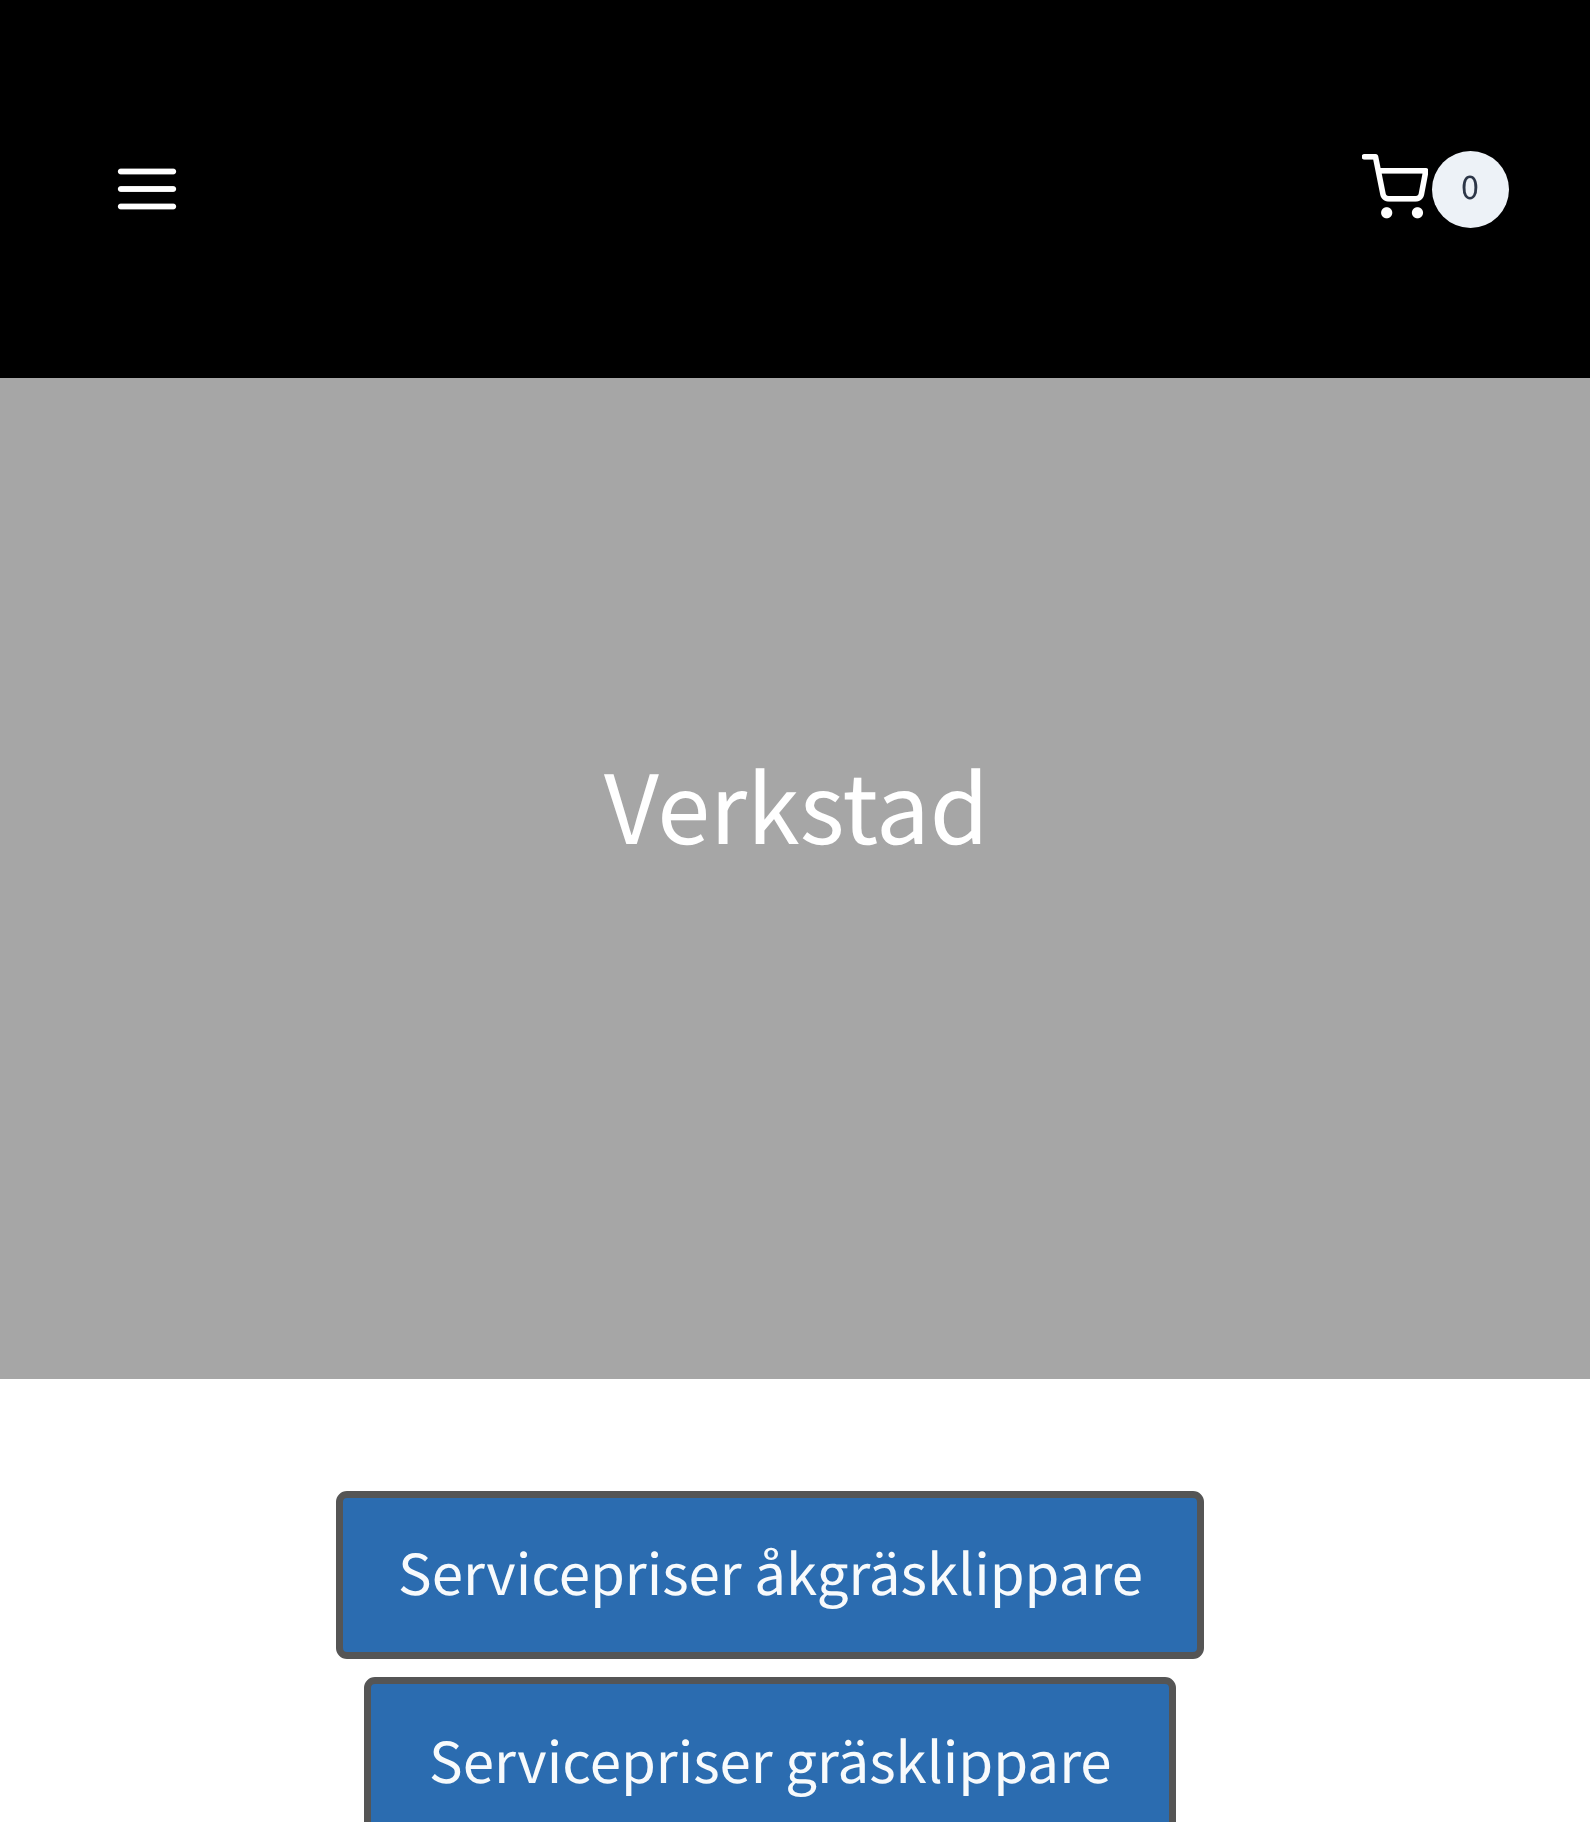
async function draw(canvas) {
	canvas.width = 1590;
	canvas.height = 1822;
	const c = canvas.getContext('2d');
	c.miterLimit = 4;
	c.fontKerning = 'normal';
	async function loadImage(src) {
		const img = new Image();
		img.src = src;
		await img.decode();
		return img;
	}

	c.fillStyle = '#fff';
	c.fillRect(0, 0, 1590, 1822);
	c.fillStyle = '#000';
	c.fillRect(0, 0, 1590, 378);
	c.drawImage(await loadImage('img1.png'), 117, 168, 60, 42);
	c.drawImage(await loadImage('img2.png'), 1362, 154, 66, 65);
	c.fillStyle = '#edf2f7';
	c.beginPath();
	c.arc(1470.5, 189.5, 38.5, 0, 2 * Math.PI);
	c.fill();
	c.font = '36px Source Sans Pro';
	c.fillStyle = '#2d3748';
	c.fillText('0', 1461, 199);
	c.fillStyle = '#a6a6a6';
	c.fillRect(0, 378, 1590, 1001);
	c.font = '106.5px Source Sans Pro';
	c.fillStyle = '#fff';
	c.fillText('Verkstad', 604, 844);
	c.fillStyle = '#2b6cb0';
	c.beginPath();
	c.roundRect(339.5, 1494.5, 861, 161, 7.5);
	c.fill();
	c.strokeStyle = '#555';
	c.lineWidth = 7;
	c.stroke();
	c.font = '63px Source Sans Pro';
	c.fillStyle = '#f7fafc';
	c.fillText('Servicepriser åkgräsklippare', 398, 1595);
	c.fillStyle = '#2b6cb0';
	c.beginPath();
	c.roundRect(367.5, 1680.5, 805, 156, 7.5);
	c.fill();
	c.stroke();
	c.fillStyle = '#f7fafc';
	c.fillText('Servicepriser gräsklippare', 429, 1783);
}

draw(document.querySelector('canvas'));
